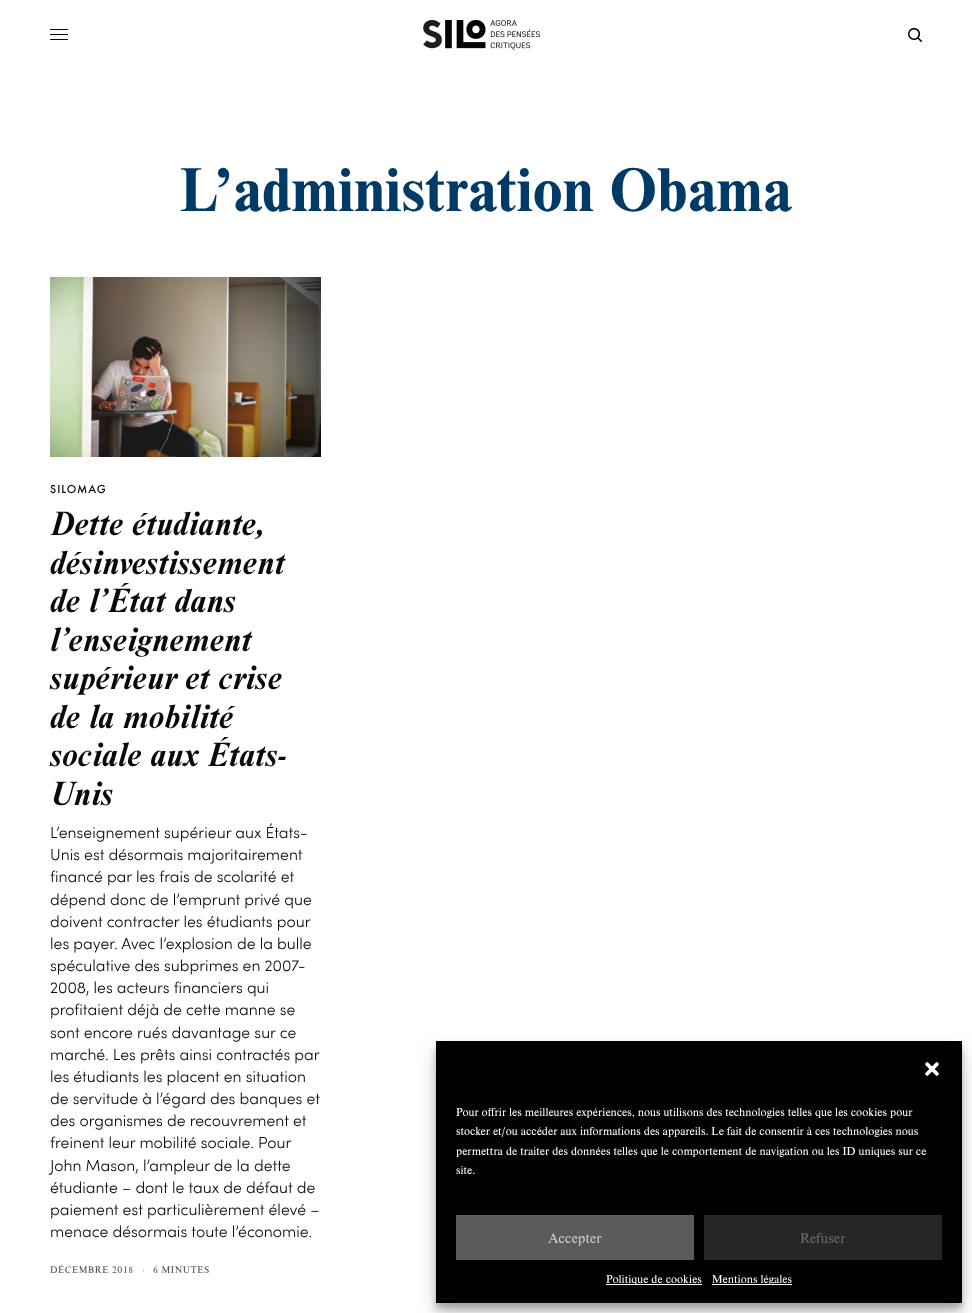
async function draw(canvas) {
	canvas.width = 972;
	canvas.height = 1313;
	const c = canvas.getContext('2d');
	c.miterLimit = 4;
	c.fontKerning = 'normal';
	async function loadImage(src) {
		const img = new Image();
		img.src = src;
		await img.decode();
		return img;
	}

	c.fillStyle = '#fff';
	c.fillRect(0, 0, 972, 1313);
	c.fillStyle = '#0a0a0a';
	c.beginPath();
	c.roundRect(50, 29, 18, 1, 0.5);
	c.fill();
	c.beginPath();
	c.roundRect(50, 34, 18, 1, 0.5);
	c.fill();
	c.beginPath();
	c.roundRect(50, 39, 18, 1, 0.5);
	c.fill();
	c.drawImage(await loadImage('img1.png'), 423, 20, 117, 30);
	c.drawImage(await loadImage('img2.png'), 908, 28, 14, 14);
	c.font = 'bold 64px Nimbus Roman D';
	c.fillStyle = '#003a66';
	c.fillText('L’administration Obama', 180, 211);
	c.drawImage(await loadImage('img3.png'), 50, 277, 271, 180);
	c.letterSpacing = '1px';
	c.font = '500 12px Futura PT';
	c.fillStyle = '#0a0a0a';
	c.fillText('SILOMAG', 50, 493);
	c.letterSpacing = '0px';
	c.font = 'italic bold 35px Nimbus Roman D';
	for (const [text, x, y] of [
		['Dette étudiante,', 50, 535],
		['désinvestissement', 50, 574],
		['de l’État dans', 50, 612],
		['l’enseignement', 50, 651],
		['supérieur et crise', 50, 689],
		['de la mobilité', 50, 728],
		['sociale aux États-', 50, 766],
		['Unis', 50, 805],
	]) {
		c.fillText(text, x, y);
	}
	c.font = '300 15.8px Sofia';
	for (const [text, x, y] of [
		['L’enseignement supérieur aux États-', 50, 838],
		['Unis est désormais majoritairement', 50, 860],
		['financé par les frais de scolarité et', 50, 882],
		['dépend donc de l’emprunt privé que', 50, 905],
		['doivent contracter les étudiants pour', 50, 927],
		['les payer. Avec l’explosion de la bulle', 50, 949],
		['spéculative des subprimes en 2007-', 50, 971],
		['2008, les acteurs financiers qui', 50, 993],
		['profitaient déjà de cette manne se', 50, 1015],
		['sont encore rués davantage sur ce', 50, 1038],
		['marché. Les prêts ainsi contractés par', 50, 1060],
		['les étudiants les placent en situation', 50, 1082],
		['de servitude à l’égard des banques et', 50, 1104],
		['des organismes de recouvrement et', 50, 1126],
		['freinent leur mobilité sociale. Pour', 50, 1148],
		['John Mason, l’ampleur de la dette', 50, 1171],
		['étudiante – dont le taux de défaut de', 50, 1193],
		['paiement est particulièrement élevé –', 50, 1215],
		['menace désormais toute l’économie.', 50, 1237],
	]) {
		c.fillText(text, x, y);
	}
	c.letterSpacing = '0.5px';
	c.font = '10px Nimbus Roman D';
	c.fillStyle = '#545454';
	c.fillText('DÉCEMBRE 2018', 50, 1273);
	c.font = 'bold 10px Nimbus Roman D';
	c.fillStyle = '#b5b5b5';
	c.fillText('·', 142, 1273);
	c.font = '10px Nimbus Roman D';
	c.fillStyle = '#545454';
	c.fillText('6 MINUTES', 153, 1273);
	c.fillStyle = '#0000003b';
	c.filter = 'blur(3px)';
	c.beginPath();
	c.rect(436, 1047, 526, 262);
	c.fill();
	c.filter = 'none';
	c.fillStyle = '#00000030';
	c.filter = 'blur(10px)';
	c.beginPath();
	c.rect(436, 1051, 526, 262);
	c.fill();
	c.filter = 'none';
	c.fillStyle = '#000';
	c.fillRect(436, 1041, 526, 262);
	c.drawImage(await loadImage('img4.png'), 925, 1062, 14, 14);
	c.letterSpacing = '0px';
	c.font = '12px Nimbus Roman D';
	c.fillStyle = '#fff';
	for (const [text, x, y] of [
		['Pour offrir les meilleures expériences, nous utilisons des technologies telles que les cookies pour', 456, 1116],
		['stocker et/ou accéder aux informations des appareils. Le fait de consentir à ces technologies nous', 456, 1135],
		['permettra de traiter des données telles que le comportement de navigation ou les ID uniques sur ce', 456, 1155],
		['site.', 456, 1174],
	]) {
		c.fillText(text, x, y);
	}
	c.fillStyle = '#5b5b5b';
	c.fillRect(456, 1215, 238, 45);
	c.font = '15px Nimbus Roman D';
	c.fillStyle = '#ccc';
	c.fillText('Accepter', 548, 1243);
	c.fillStyle = '#262626';
	c.fillRect(704, 1215, 238, 45);
	c.fillStyle = '#6b6b6b';
	c.fillText('Refuser', 800, 1243);
	c.fillStyle = '#fff';
	c.fillRect(606, 1284, 96, 1);
	c.font = '12px Nimbus Roman D';
	c.fillText('Politique de cookies', 606, 1283);
	c.fillRect(712, 1284, 80, 1);
	c.fillText('Mentions légales', 712, 1283);
}

draw(document.querySelector('canvas'));
